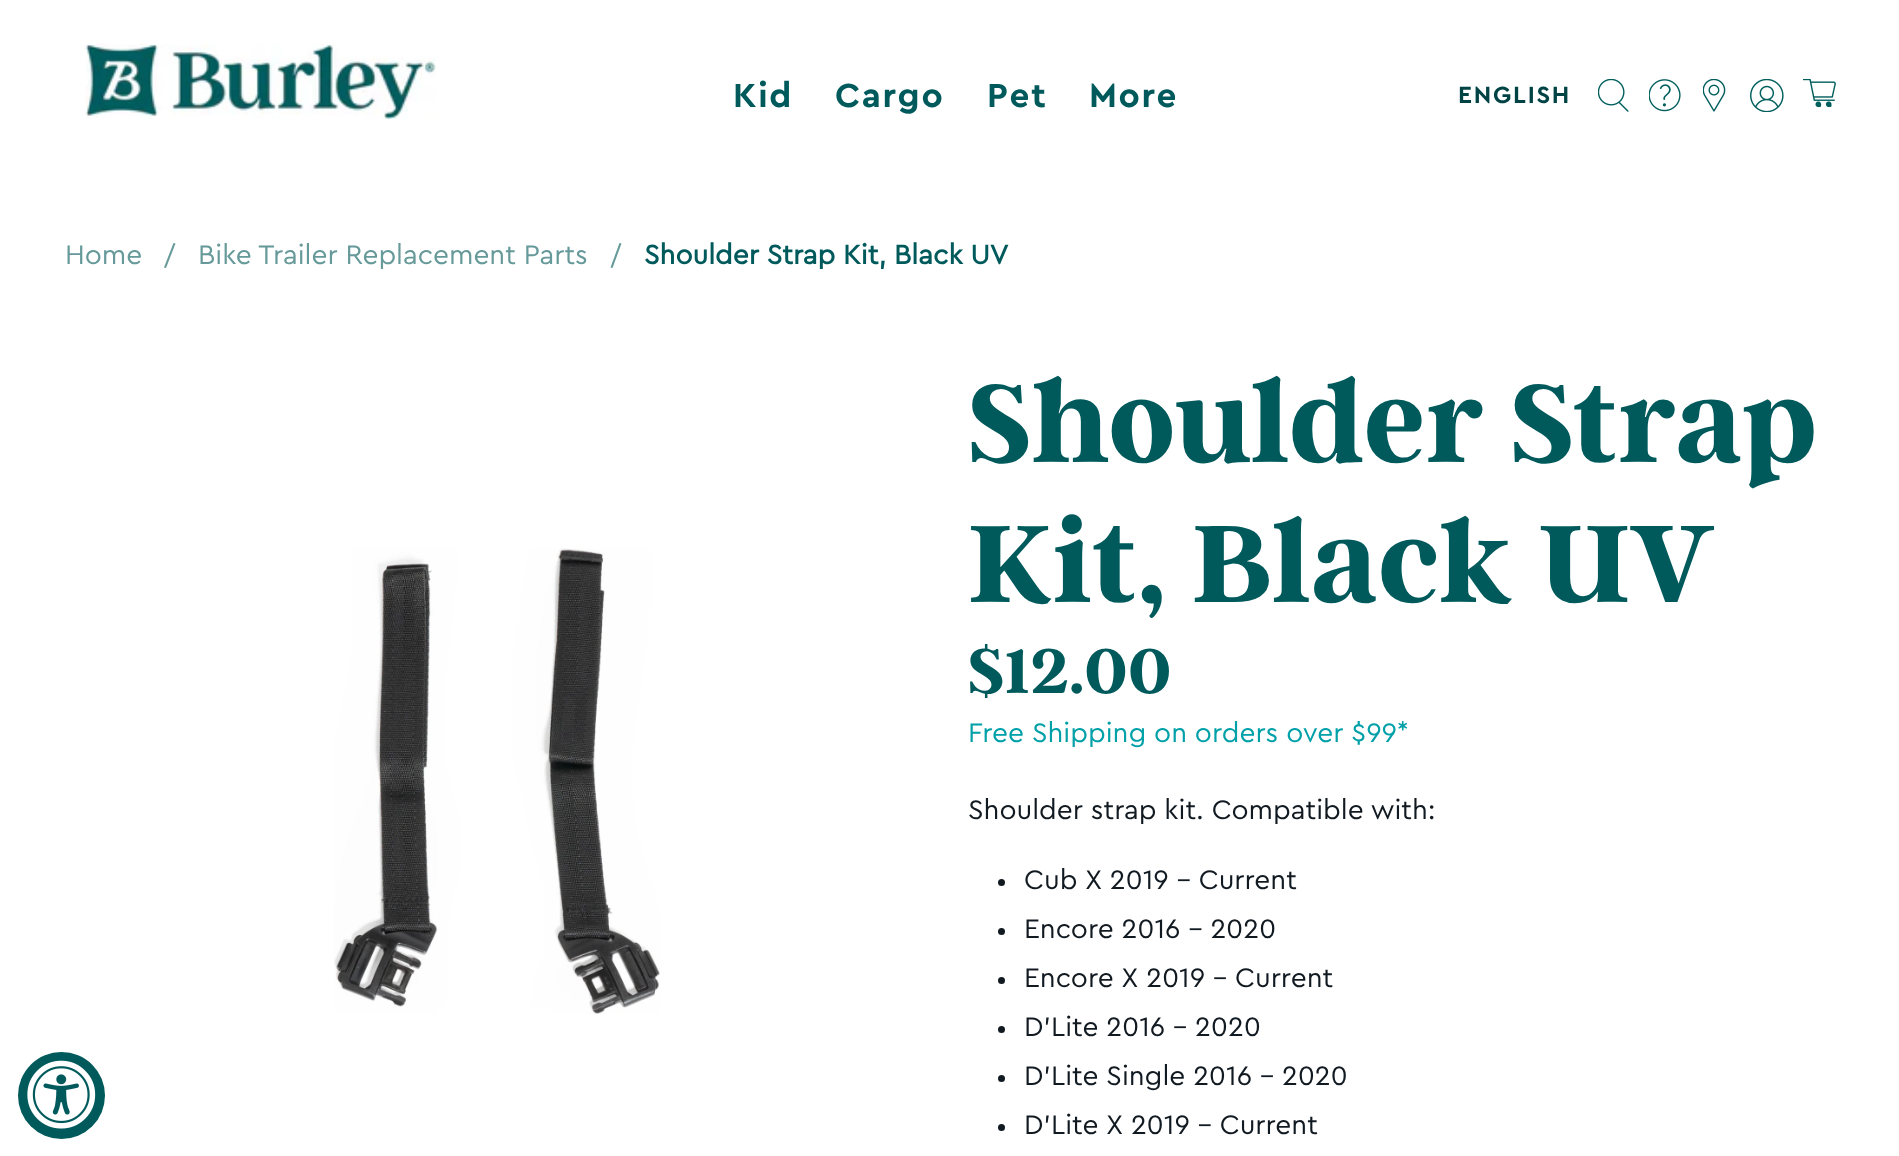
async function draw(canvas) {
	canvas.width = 1899;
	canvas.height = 1156;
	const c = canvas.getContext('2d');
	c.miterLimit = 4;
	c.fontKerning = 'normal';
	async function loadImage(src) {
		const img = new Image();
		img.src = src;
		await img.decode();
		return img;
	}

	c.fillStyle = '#fff';
	c.fillRect(0, 0, 1899, 1156);
	c.drawImage(await loadImage('img1.png'), 85, 43, 351, 76);
	c.letterSpacing = '1.75px';
	c.font = 'bold 35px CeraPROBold';
	c.fillStyle = '#005a5c';
	for (const [text, x, y] of [
		['Kid', 733, 107],
		['Cargo', 835, 107],
		['Pet', 987, 107],
		['More', 1089, 107],
	]) {
		c.fillText(text, x, y);
	}
	c.font = 'bold 24.5px CeraPROBold';
	c.fillStyle = '#004345';
	c.fillText('ENGLISH', 1458, 103);
	c.drawImage(await loadImage('img2.png'), 1598, 79, 31, 33);
	c.drawImage(await loadImage('img3.png'), 1649, 79, 32, 33);
	c.drawImage(await loadImage('img4.png'), 1703, 79, 23, 33);
	c.drawImage(await loadImage('img5.png'), 1750, 79, 34, 33);
	c.drawImage(await loadImage('img6.png'), 1803, 79, 33, 29);
	c.fillStyle = '#005a5c';
	c.beginPath();
	c.arc(61.5, 1095.5, 43.5, 0, 2 * Math.PI);
	c.fill();
	c.drawImage(await loadImage('img7.png'), 27, 1060, 69, 69);
	c.letterSpacing = '0px';
	c.font = '28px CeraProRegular';
	c.fillStyle = '#699';
	c.fillText('Home', 65, 264);
	c.beginPath();
	c.moveTo(164, 267.5);
	c.lineTo(173.5, 243);
	c.lineTo(175.5, 243.5);
	c.lineTo(166, 268);
	c.closePath();
	c.fill();
	c.fillText('Bike Trailer Replacement Parts', 198, 264);
	c.beginPath();
	c.moveTo(610.5, 267.5);
	c.lineTo(619.5, 243);
	c.lineTo(621.5, 243.5);
	c.lineTo(612.5, 268);
	c.closePath();
	c.fill();
	c.font = 'bold 28px CeraProRegular';
	c.fillStyle = '#005a5c';
	c.fillText('Shoulder Strap Kit, Black UV', 644, 264);
	c.drawImage(await loadImage('img8.png'), 334, 548, 326, 466);
	c.font = 'bold 122.5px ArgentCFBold';
	c.fillText('Shoulder Strap', 968, 462);
	c.fillText('Kit, Black UV', 968, 602);
	c.font = 'bold 70px ArgentCFBold';
	c.fillText('$12.00', 968, 693);
	c.font = '28px CeraProRegular';
	c.fillStyle = '#00a0a8';
	c.fillText('Free Shipping on orders over $99*', 968, 742);
	c.fillStyle = '#111921';
	c.fillText('Shoulder strap kit. Compatible with:', 968, 819);
	c.beginPath();
	c.arc(1001.5, 882.5, 3.5, 0, 2 * Math.PI);
	c.fill();
	c.fillText('Cub X 2019 - Current', 1024, 889);
	c.beginPath();
	c.arc(1001.5, 931.5, 3.5, 0, 2 * Math.PI);
	c.fill();
	c.fillText('Encore 2016 - 2020', 1024, 938);
	c.beginPath();
	c.arc(1001.5, 980.5, 3.5, 0, 2 * Math.PI);
	c.fill();
	c.fillText('Encore X 2019 - Current', 1024, 987);
	c.beginPath();
	c.arc(1001.5, 1029.5, 3.5, 0, 2 * Math.PI);
	c.fill();
	c.fillText('D\'Lite 2016 - 2020', 1024, 1036);
	c.beginPath();
	c.arc(1001.5, 1078.5, 3.5, 0, 2 * Math.PI);
	c.fill();
	c.fillText('D\'Lite Single 2016 - 2020', 1024, 1085);
	c.beginPath();
	c.arc(1001.5, 1127.5, 3.5, 0, 2 * Math.PI);
	c.fill();
	c.fillText('D\'Lite X 2019 - Current', 1024, 1134);
}

draw(document.querySelector('canvas'));
